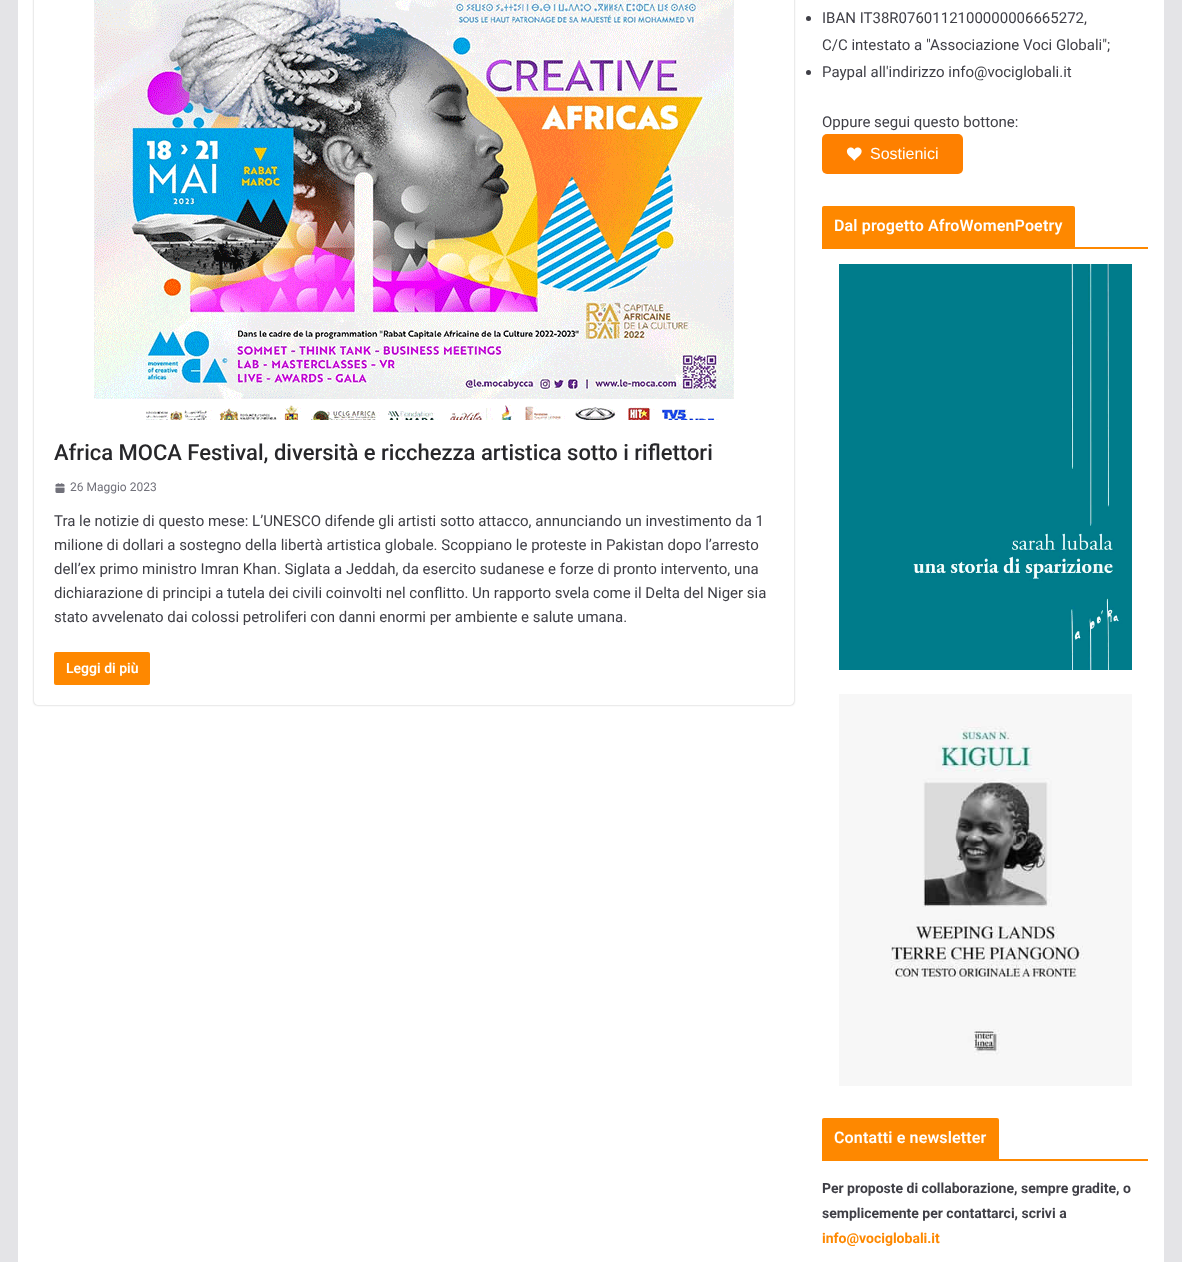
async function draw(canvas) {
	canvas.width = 1182;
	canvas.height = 1262;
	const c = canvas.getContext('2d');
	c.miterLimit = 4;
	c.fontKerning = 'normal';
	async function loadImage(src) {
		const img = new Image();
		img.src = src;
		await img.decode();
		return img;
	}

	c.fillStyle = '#e4e4e7';
	c.fillRect(0, 0, 1182, 1262);
	c.fillStyle = '#fff';
	c.fillRect(18, 0, 1146, 1262);
	c.save();
	c.beginPath();
	c.moveTo(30, 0);
	c.lineTo(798, 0);
	c.lineTo(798, 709);
	c.lineTo(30, 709);
	c.closePath();
	c.moveTo(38, -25);
	c.lineTo(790, -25);
	c.bezierCurveTo(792, -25, 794, -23, 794, -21);
	c.lineTo(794, 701);
	c.bezierCurveTo(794, 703, 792, 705, 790, 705);
	c.lineTo(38, 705);
	c.bezierCurveTo(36, 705, 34, 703, 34, 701);
	c.lineTo(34, -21);
	c.bezierCurveTo(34, -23, 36, -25, 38, -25);
	c.closePath();
	c.clip('evenodd');
	c.fillStyle = '#0000003d';
	c.filter = 'blur(1px)';
	c.beginPath();
	c.roundRect(34, -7, 760, 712, 4);
	c.fill();
	c.filter = 'none';
	c.restore();
	c.drawImage(await loadImage('img1.png'), 94, 0, 640, 420);
	c.font = '500 22px Roboto';
	c.fillStyle = '#27272a';
	c.fillText('Africa MOCA Festival, diversità e ricchezza artistica sotto i riflettori', 54, 460);
	c.drawImage(await loadImage('img2.png'), 55, 483, 10, 10);
	c.font = '12px Roboto';
	c.fillStyle = '#71717a';
	c.fillText('26 Maggio 2023', 70, 491);
	c.font = '15px Roboto';
	c.fillStyle = '#3f3f46';
	for (const [text, x, y] of [
		['Tra le notizie di questo mese: L’UNESCO difende gli artisti sotto attacco, annunciando un investimento da 1', 54, 526],
		['milione di dollari a sostegno della libertà artistica globale. Scoppiano le proteste in Pakistan dopo l’arresto', 54, 550],
		['dell’ex primo ministro Imran Khan. Siglata a Jeddah, da esercito sudanese e forze di pronto intervento, una', 54, 574],
		['dichiarazione di principi a tutela dei civili coinvolti nel conflitto. Un rapporto svela come il Delta del Niger sia', 54, 598],
		['stato avvelenato dai colossi petroliferi con danni enormi per ambiente e salute umana.', 54, 622],
	]) {
		c.fillText(text, x, y);
	}
	c.fillStyle = '#fe8800';
	c.beginPath();
	c.roundRect(54, 652, 96, 33, 2);
	c.fill();
	c.font = '600 14px Roboto';
	c.fillStyle = '#fff';
	c.fillText('Leggi di più', 66, 673);
	c.fillStyle = '#3f3f46';
	c.beginPath();
	c.arc(808.5, 18.5, 2.5, 0, 2 * Math.PI);
	c.fill();
	c.font = '15px Roboto';
	c.fillText('IBAN IT38R0760112100000006665272,', 822, 23);
	c.fillText('C/C intestato a "Associazione Voci Globali";', 822, 50);
	c.beginPath();
	c.arc(808.5, 72.5, 2.5, 0, 2 * Math.PI);
	c.fill();
	c.fillText('Paypal all\'indirizzo info@vociglobali.it', 822, 77);
	c.fillText('Oppure segui questo bottone:', 822, 127);
	c.fillStyle = '#fe8000';
	c.beginPath();
	c.roundRect(822, 134, 141, 40, 5);
	c.fill();
	c.drawImage(await loadImage('img3.png'), 846, 147, 16, 14);
	c.font = '16px Liberation Sans';
	c.fillStyle = '#fff';
	c.fillText('Sostienici', 870, 159);
	c.fillStyle = '#fe8800';
	c.fillRect(822, 247, 326, 2);
	c.beginPath();
	c.roundRect(822, 206, 253, 41, [2, 2, 0, 0]);
	c.fill();
	c.letterSpacing = '0.15px';
	c.font = '600 16px Roboto';
	c.fillStyle = '#fff';
	c.fillText('Dal progetto AfroWomenPoetry', 834, 231);
	c.drawImage(await loadImage('img4.png'), 839, 264, 293, 406);
	c.drawImage(await loadImage('img5.png'), 839, 694, 293, 392);
	c.fillStyle = '#fe8800';
	c.fillRect(822, 1159, 326, 2);
	c.beginPath();
	c.roundRect(822, 1118, 177, 41, [2, 2, 0, 0]);
	c.fill();
	c.fillStyle = '#fff';
	c.fillText('Contatti e newsletter', 834, 1143);
	c.letterSpacing = '0px';
	c.font = 'bold 14px Roboto';
	c.fillStyle = '#3f3f46';
	c.fillText('Per proposte di collaborazione, sempre gradite, o', 822, 1193);
	c.fillText('semplicemente per contattarci, scrivi a', 822, 1218);
	c.fillStyle = '#fe8800';
	c.fillText('info@vociglobali.it', 822, 1243);
}

draw(document.querySelector('canvas'));
